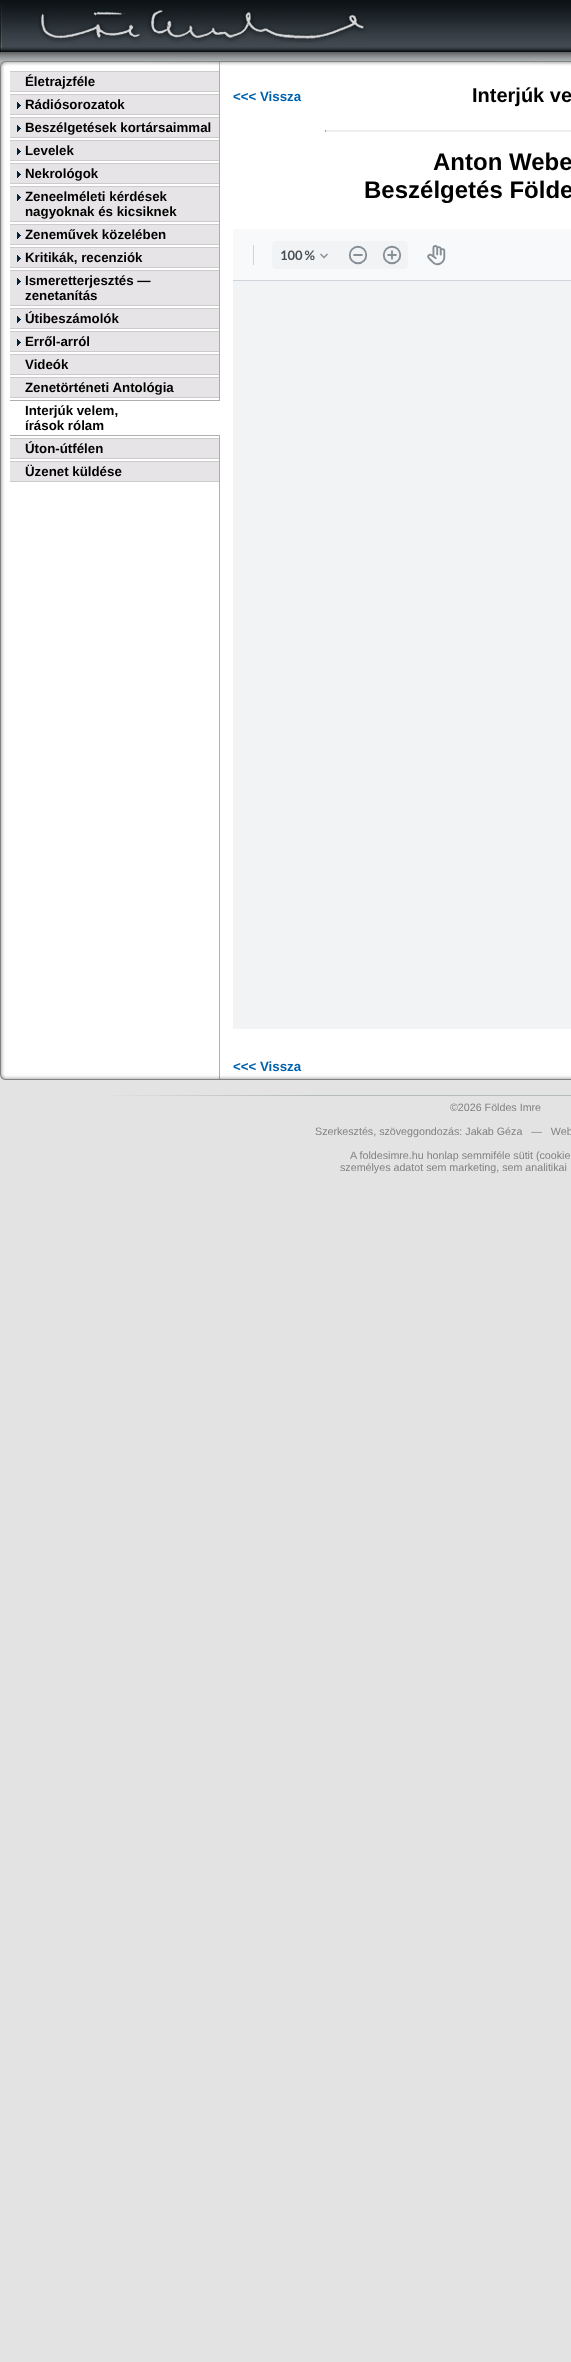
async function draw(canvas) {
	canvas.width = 571;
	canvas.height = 2362;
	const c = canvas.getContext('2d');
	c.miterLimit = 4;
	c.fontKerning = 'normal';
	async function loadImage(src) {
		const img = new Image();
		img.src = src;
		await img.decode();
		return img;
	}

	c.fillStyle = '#e4e3e4';
	c.fillRect(0, 0, 571, 2362);
	c.drawImage(await loadImage('img1.png'), 0, 0, 571, 61);
	c.drawImage(await loadImage('img2.png'), 0, 4, 2, 48);
	c.drawImage(await loadImage('img3.png'), 38, 10, 328, 33);
	c.drawImage(await loadImage('img4.png'), 0, 61, 571, 6);
	c.fillStyle = '#fff';
	c.fillRect(5, 67, 566, 1007);
	c.drawImage(await loadImage('img5.png'), 0, 67, 5, 1007);
	c.fillStyle = '#afaeaf';
	c.fillRect(219, 67, 1, 1007);
	c.fillStyle = '#e6e4e6';
	c.fillRect(10, 72, 209, 19);
	c.drawImage(await loadImage('img6.png'), 10, 70, 209, 2);
	c.drawImage(await loadImage('img7.png'), 10, 91, 209, 2);
	c.font = 'bold 13.3px Liberation Sans';
	c.fillStyle = '#000';
	c.fillText('Életrajzféle', 25, 86);
	c.fillStyle = '#e6e4e6';
	c.fillRect(10, 95, 209, 19);
	c.drawImage(await loadImage('img6.png'), 10, 93, 209, 2);
	c.drawImage(await loadImage('img7.png'), 10, 114, 209, 2);
	c.drawImage(await loadImage('img8.png'), 17, 102, 4, 7);
	c.fillStyle = '#000';
	c.fillText('Rádiósorozatok', 25, 109);
	c.fillStyle = '#e6e4e6';
	c.fillRect(10, 118, 209, 19);
	c.drawImage(await loadImage('img6.png'), 10, 116, 209, 2);
	c.drawImage(await loadImage('img7.png'), 10, 137, 209, 2);
	c.drawImage(await loadImage('img8.png'), 17, 125, 4, 7);
	c.fillStyle = '#000';
	c.fillText('Beszélgetések kortársaimmal', 25, 132);
	c.fillStyle = '#e6e4e6';
	c.fillRect(10, 141, 209, 19);
	c.drawImage(await loadImage('img6.png'), 10, 139, 209, 2);
	c.drawImage(await loadImage('img7.png'), 10, 160, 209, 2);
	c.drawImage(await loadImage('img8.png'), 17, 148, 4, 7);
	c.fillStyle = '#000';
	c.fillText('Levelek', 25, 155);
	c.fillStyle = '#e6e4e6';
	c.fillRect(10, 164, 209, 19);
	c.drawImage(await loadImage('img6.png'), 10, 162, 209, 2);
	c.drawImage(await loadImage('img7.png'), 10, 183, 209, 2);
	c.drawImage(await loadImage('img8.png'), 17, 171, 4, 7);
	c.fillStyle = '#000';
	c.fillText('Nekrológok', 25, 178);
	c.fillStyle = '#e6e4e6';
	c.fillRect(10, 187, 209, 34);
	c.drawImage(await loadImage('img6.png'), 10, 185, 209, 2);
	c.drawImage(await loadImage('img7.png'), 10, 221, 209, 2);
	c.drawImage(await loadImage('img8.png'), 17, 194, 4, 7);
	c.fillStyle = '#000';
	c.fillText('Zeneelméleti kérdések', 25, 201);
	c.fillText('nagyoknak és kicsiknek', 25, 216);
	c.fillStyle = '#e6e4e6';
	c.fillRect(10, 225, 209, 19);
	c.drawImage(await loadImage('img6.png'), 10, 223, 209, 2);
	c.drawImage(await loadImage('img7.png'), 10, 244, 209, 2);
	c.drawImage(await loadImage('img8.png'), 17, 232, 4, 7);
	c.fillStyle = '#000';
	c.fillText('Zeneművek közelében', 25, 239);
	c.fillStyle = '#e6e4e6';
	c.fillRect(10, 248, 209, 19);
	c.drawImage(await loadImage('img6.png'), 10, 246, 209, 2);
	c.drawImage(await loadImage('img7.png'), 10, 267, 209, 2);
	c.drawImage(await loadImage('img8.png'), 17, 255, 4, 7);
	c.fillStyle = '#000';
	c.fillText('Kritikák, recenziók', 25, 262);
	c.fillStyle = '#e6e4e6';
	c.fillRect(10, 271, 209, 34);
	c.drawImage(await loadImage('img6.png'), 10, 269, 209, 2);
	c.drawImage(await loadImage('img7.png'), 10, 305, 209, 2);
	c.drawImage(await loadImage('img8.png'), 17, 278, 4, 7);
	c.fillStyle = '#000';
	c.fillText('Ismeretterjesztés —', 25, 285);
	c.fillText('zenetanítás', 25, 300);
	c.fillStyle = '#e6e4e6';
	c.fillRect(10, 309, 209, 19);
	c.drawImage(await loadImage('img6.png'), 10, 307, 209, 2);
	c.drawImage(await loadImage('img7.png'), 10, 328, 209, 2);
	c.drawImage(await loadImage('img8.png'), 17, 316, 4, 7);
	c.fillStyle = '#000';
	c.fillText('Útibeszámolók', 25, 323);
	c.fillStyle = '#e6e4e6';
	c.fillRect(10, 332, 209, 19);
	c.drawImage(await loadImage('img6.png'), 10, 330, 209, 2);
	c.drawImage(await loadImage('img7.png'), 10, 351, 209, 2);
	c.drawImage(await loadImage('img8.png'), 17, 339, 4, 7);
	c.fillStyle = '#000';
	c.fillText('Erről-arról', 25, 346);
	c.fillStyle = '#e6e4e6';
	c.fillRect(10, 355, 209, 19);
	c.drawImage(await loadImage('img6.png'), 10, 353, 209, 2);
	c.drawImage(await loadImage('img7.png'), 10, 374, 209, 2);
	c.fillStyle = '#000';
	c.fillText('Videók', 25, 369);
	c.fillStyle = '#e6e4e6';
	c.fillRect(10, 378, 209, 19);
	c.drawImage(await loadImage('img6.png'), 10, 376, 209, 2);
	c.drawImage(await loadImage('img7.png'), 10, 397, 209, 2);
	c.fillStyle = '#000';
	c.fillText('Zenetörténeti Antológia', 25, 392);
	c.fillStyle = '#fffeff';
	c.fillRect(219, 401, 1, 34);
	c.drawImage(await loadImage('img9.png'), 10, 399, 210, 2);
	c.drawImage(await loadImage('img10.png'), 10, 435, 210, 2);
	c.fillStyle = '#000';
	c.fillText('Interjúk velem,', 25, 415);
	c.fillText('írások rólam', 25, 430);
	c.fillStyle = '#e6e4e6';
	c.fillRect(10, 439, 209, 19);
	c.drawImage(await loadImage('img6.png'), 10, 437, 209, 2);
	c.drawImage(await loadImage('img7.png'), 10, 458, 209, 2);
	c.fillStyle = '#000';
	c.fillText('Úton-útfélen', 25, 453);
	c.fillStyle = '#e6e4e6';
	c.fillRect(10, 462, 209, 19);
	c.drawImage(await loadImage('img6.png'), 10, 460, 209, 2);
	c.drawImage(await loadImage('img7.png'), 10, 481, 209, 2);
	c.fillStyle = '#000';
	c.fillText('Üzenet küldése', 25, 476);
	c.fillStyle = '#0061ad';
	c.fillText('<<< Vissza', 233, 101);
	c.font = 'bold 20px Liberation Sans';
	c.fillStyle = '#000';
	c.fillText('Interjúk ve', 472, 102);
	c.fillStyle = '#eee';
	c.fillRect(325, 130, 246, 2);
	c.fillStyle = '#9f9f9f';
	c.fillRect(325, 130, 1, 2);
	c.font = 'bold 24px Liberation Sans';
	c.fillStyle = '#000';
	c.fillText('Anton Webe', 433, 170);
	c.fillText('Beszélgetés Földe', 364, 198);
	c.drawImage(await loadImage('img11.png'), 233, 229, 338, 800);
	c.font = 'bold 13.3px Liberation Sans';
	c.fillStyle = '#0061ad';
	c.fillText('<<< Vissza', 233, 1071);
	c.drawImage(await loadImage('img12.png'), 0, 1074, 571, 6);
	c.drawImage(await loadImage('img13.png'), 112, 1095, 459, 1);
	c.font = '10.7px Liberation Sans';
	c.fillStyle = '#828282';
	for (const [text, x, y] of [
		['©2026 Földes Imre', 450, 1111],
		['Szerkesztés, szöveggondozás: Jakab Géza   —   Web', 315, 1135],
		['A foldesimre.hu honlap semmiféle sütit (cookie', 350, 1159],
		['személyes adatot sem marketing, sem analitikai', 340, 1171],
	]) {
		c.fillText(text, x, y);
	}
}

draw(document.querySelector('canvas'));
